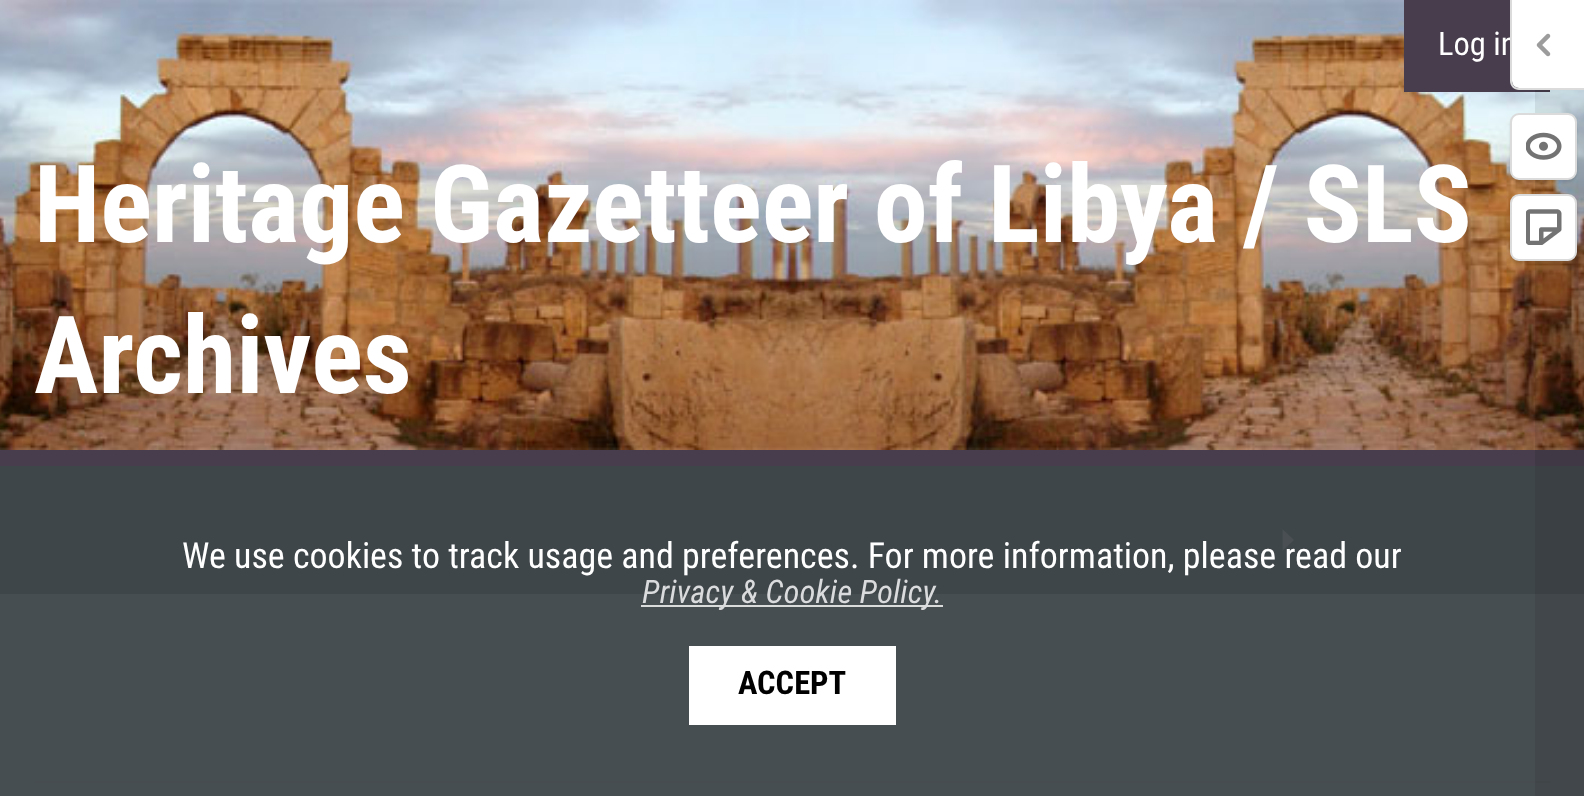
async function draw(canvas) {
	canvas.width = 1584;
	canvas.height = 796;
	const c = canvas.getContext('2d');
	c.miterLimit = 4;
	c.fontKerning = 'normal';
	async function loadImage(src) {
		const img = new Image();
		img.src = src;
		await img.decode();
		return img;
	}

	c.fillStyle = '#473d4c';
	c.fillRect(0, 0, 1584, 796);
	c.drawImage(await loadImage('img1.png'), 0, 0, 1584, 450);
	c.fillRect(1404, 0, 146, 92);
	c.font = '32.5px Roboto Condensed';
	c.fillStyle = '#fff';
	c.fillText('Log in', 1438, 55);
	c.font = 'bold 108px Roboto Condensed';
	c.fillText('Heritage Gazetteer of Libya / SLS', 34, 242);
	c.fillText('Archives', 34, 393);
	for (const [x, y, w, h, color] of [
		[0, 466, 1584, 128, '#3f464a'],
		[0, 594, 1584, 202, '#474e52'],
		[34, 781, 1516, 2, '#464c4f'],
		[1535, 90, 49, 706, '#00000014'],
	]) {
		c.fillStyle = color;
		c.fillRect(x, y, w, h);
	}
	c.fillStyle = '#fff';
	c.beginPath();
	c.roundRect(1512, 0, 72, 88, [0, 0, 0, 7]);
	c.fill();
	c.fillStyle = '#dbdbdb';
	c.beginPath();
	c.moveTo(1510, 0);
	c.lineTo(1584, 0);
	c.lineTo(1584, 90);
	c.lineTo(1519, 90);
	c.bezierCurveTo(1514, 90, 1510, 86, 1510, 81);
	c.closePath();
	c.moveTo(1512, 0);
	c.lineTo(1584, 0);
	c.lineTo(1584, 88);
	c.lineTo(1519, 88);
	c.bezierCurveTo(1515, 88, 1512, 85, 1512, 81);
	c.closePath();
	c.fill('evenodd');
	c.drawImage(await loadImage('img2.png'), 1536, 33, 15, 24);
	c.fillStyle = '#0000001a';
	c.filter = 'blur(1px)';
	c.beginPath();
	c.roundRect(1510, 115, 67, 67, 9);
	c.fill();
	c.filter = 'none';
	c.fillStyle = '#fff';
	c.beginPath();
	c.roundRect(1511, 114, 65, 65, 8);
	c.fill();
	c.strokeStyle = '#dbdbdb';
	c.lineWidth = 2;
	c.stroke();
	c.drawImage(await loadImage('img3.png'), 1526, 132, 36, 28);
	c.fillStyle = '#0000001a';
	c.filter = 'blur(1px)';
	c.beginPath();
	c.roundRect(1510, 196, 67, 67, 9);
	c.fill();
	c.filter = 'none';
	c.fillStyle = '#fff';
	c.beginPath();
	c.roundRect(1511, 195, 65, 65, 8);
	c.fill();
	c.stroke();
	c.drawImage(await loadImage('img4.png'), 1526, 209, 36, 36);
	c.fillStyle = '#494f53';
	c.beginPath();
	c.moveTo(1282.5, 551);
	c.lineTo(1282.5, 529);
	c.lineTo(1294, 540);
	c.closePath();
	c.fill();
	c.font = '36px Roboto Condensed';
	c.fillStyle = '#fff';
	c.fillText('We use cookies to track usage and preferences. For more information, please read our', 182, 568);
	c.fillStyle = '#dadcdc';
	c.fillRect(641, 605, 302, 2);
	c.font = 'italic 32.5px Roboto Condensed';
	c.fillStyle = '#dadbdc';
	c.fillText('Privacy & Cookie Policy.', 642, 603);
	c.fillStyle = '#fff';
	c.fillRect(689, 646, 207, 79);
	c.font = 'bold 32.5px Roboto Condensed';
	c.fillStyle = '#000';
	c.fillText('ACCEPT', 738, 694);
}

draw(document.querySelector('canvas'));
